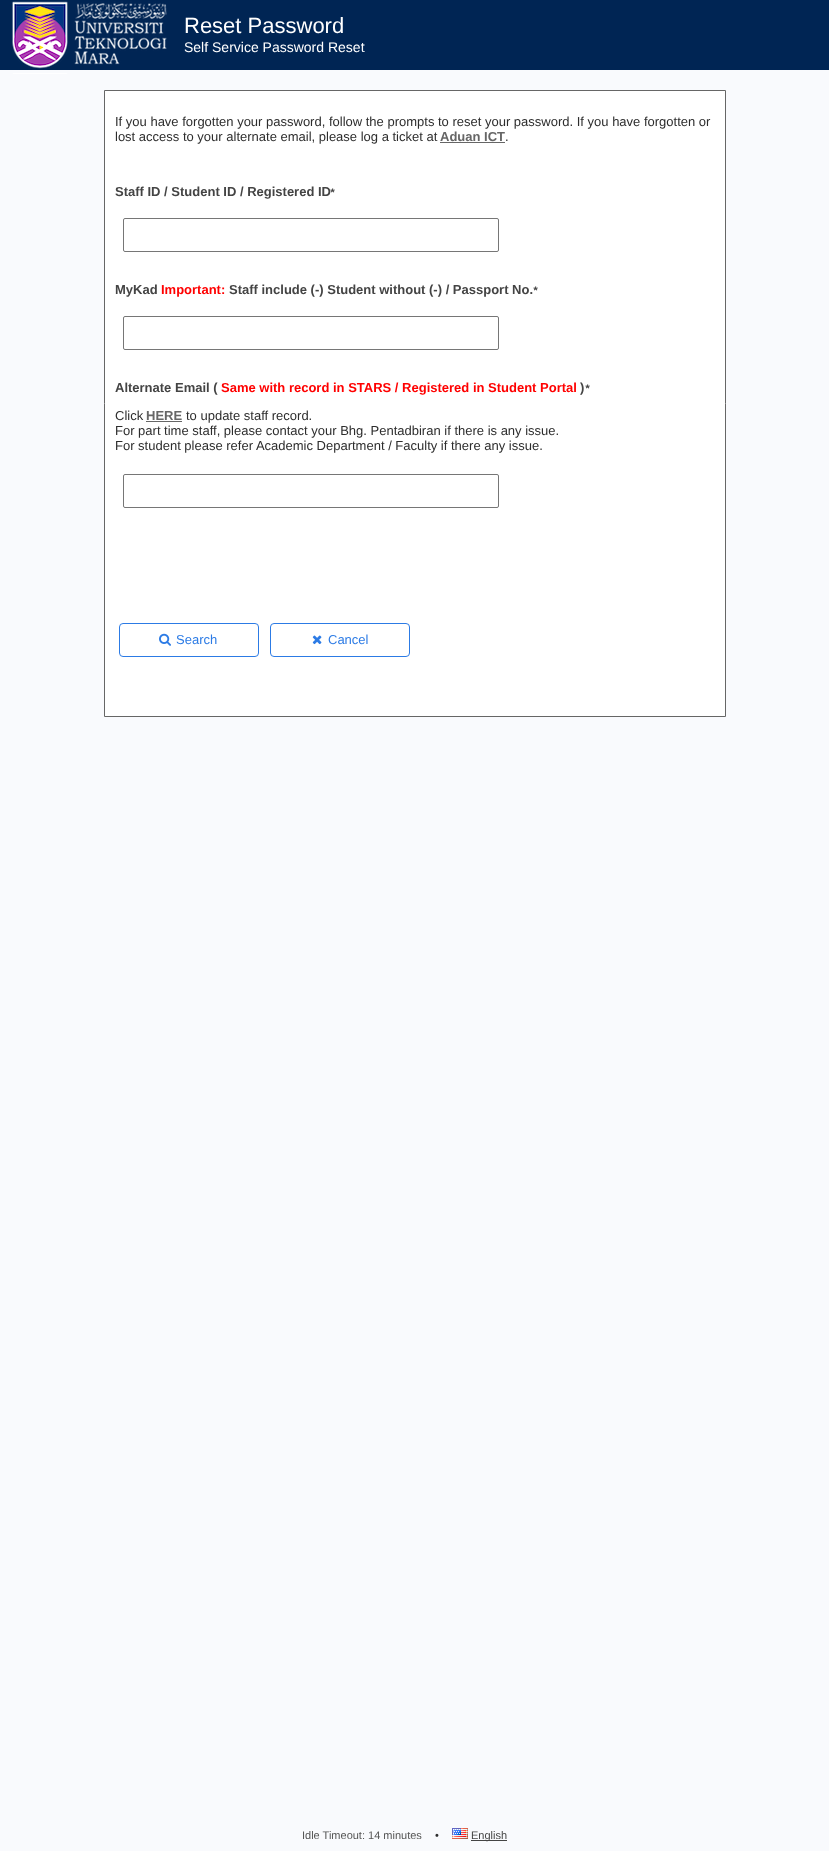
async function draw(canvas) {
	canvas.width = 829;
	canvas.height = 1851;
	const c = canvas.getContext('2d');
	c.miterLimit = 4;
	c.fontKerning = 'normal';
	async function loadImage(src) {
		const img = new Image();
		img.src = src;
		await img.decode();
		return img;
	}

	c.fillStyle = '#f9fafd';
	c.fillRect(0, 0, 829, 1851);
	c.fillStyle = '#002554';
	c.fillRect(0, 0, 829, 70);
	c.drawImage(await loadImage('img1.png'), 12, 1, 155, 73);
	c.font = '22px Liberation Sans';
	c.fillStyle = '#fff';
	c.fillText('Reset Password', 184, 33);
	c.font = '14px Liberation Sans';
	c.fillText('Self Service Password Reset', 184, 52);
	c.beginPath();
	c.rect(104.5, 90.5, 621, 626);
	c.fill();
	c.strokeStyle = '#666';
	c.stroke();
	c.font = '13px Liberation Sans';
	c.fillStyle = '#2d2d2d';
	c.fillText('If you have forgotten your password, follow the prompts to reset your password. If you have forgotten or', 115, 126);
	c.fillText('lost access to your alternate email, please log a ticket at', 115, 141);
	c.font = 'bold 13px Liberation Sans';
	c.fillStyle = '#666';
	c.fillText('Aduan ICT', 440, 141);
	c.fillRect(440, 142, 65, 1);
	c.font = '13px Liberation Sans';
	c.fillStyle = '#2d2d2d';
	c.fillText('.', 505, 141);
	c.font = 'bold 13px Liberation Sans';
	c.fillStyle = '#444';
	c.fillText('Staff ID / Student ID / Registered ID', 115, 196);
	c.font = 'italic bold 11px Liberation Sans';
	c.fillText('*', 330, 196);
	c.beginPath();
	c.roundRect(123.5, 218.5, 375, 33, 1.5);
	c.strokeStyle = '#767676';
	c.stroke();
	c.font = 'bold 13px Liberation Sans';
	c.fillText('MyKad', 115, 294);
	c.fillStyle = '#f00';
	c.fillText('Important:', 161, 294);
	c.fillStyle = '#444';
	c.fillText('Staff include (-) Student without (-) / Passport No.', 229, 294);
	c.font = 'italic bold 11px Liberation Sans';
	c.fillText('*', 533, 294);
	c.beginPath();
	c.roundRect(123.5, 316.5, 375, 33, 1.5);
	c.stroke();
	c.font = 'bold 13px Liberation Sans';
	c.fillText('Alternate Email (', 115, 392);
	c.fillStyle = '#f00';
	c.fillText('Same with record in STARS / Registered in Student Portal', 221, 392);
	c.fillStyle = '#444';
	c.fillText(')', 580, 392);
	c.font = 'italic bold 11px Liberation Sans';
	c.fillText('*', 585, 392);
	c.font = '13px Liberation Sans';
	c.fillStyle = '#2d2d2d';
	c.fillText('Click', 115, 420);
	c.font = 'bold 13px Liberation Sans';
	c.fillStyle = '#666';
	c.fillText('HERE', 146, 420);
	c.fillRect(146, 421, 36, 1);
	c.font = '13px Liberation Sans';
	c.fillStyle = '#2d2d2d';
	for (const [text, x, y] of [
		['to update staff record.', 186, 420],
		['For part time staff, please contact your Bhg. Pentadbiran if there is any issue.', 115, 435],
		['For student please refer Academic Department / Faculty if there any issue.', 115, 450],
	]) {
		c.fillText(text, x, y);
	}
	c.beginPath();
	c.roundRect(123.5, 474.5, 375, 33, 1.5);
	c.stroke();
	c.beginPath();
	c.roundRect(119.5, 623.5, 139, 33, 3.5);
	c.strokeStyle = '#2c7be5';
	c.stroke();
	c.drawImage(await loadImage('img2.png'), 159, 633, 12, 13);
	c.fillStyle = '#2c7be5';
	c.fillText('Search', 176, 644);
	c.beginPath();
	c.roundRect(270.5, 623.5, 139, 33, 3.5);
	c.stroke();
	c.drawImage(await loadImage('img3.png'), 312, 635, 10, 10);
	c.fillText('Cancel', 328, 644);
	c.font = '11px Liberation Sans';
	c.fillStyle = '#555';
	c.fillText('Idle Timeout: 14 minutes', 302, 1839);
	c.fillStyle = '#2d2d2d';
	c.fillText('•', 435, 1839);
	c.drawImage(await loadImage('img4.png'), 452, 1828, 16, 11);
	c.fillStyle = '#444';
	c.fillRect(471, 1840, 36, 1);
	c.fillText('English', 471, 1839);
}

draw(document.querySelector('canvas'));
